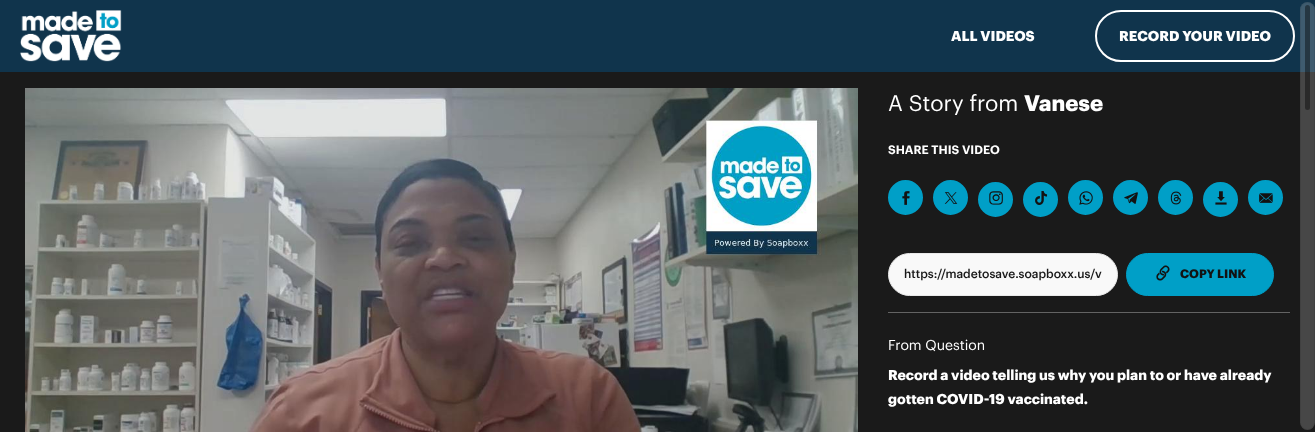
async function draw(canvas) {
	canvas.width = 1315;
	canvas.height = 432;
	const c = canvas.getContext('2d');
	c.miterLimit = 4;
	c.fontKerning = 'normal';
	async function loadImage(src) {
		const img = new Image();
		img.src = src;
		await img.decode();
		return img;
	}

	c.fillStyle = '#10344c';
	c.fillRect(0, 0, 1315, 432);
	c.drawImage(await loadImage('img1.png'), 20, 10, 102, 52);
	c.font = 'bold 14px Graphik';
	c.fillStyle = '#fff';
	c.fillText('ALL VIDEOS', 951, 41);
	c.beginPath();
	c.roundRect(1096, 11, 198, 50, 25);
	c.strokeStyle = '#fff';
	c.lineWidth = 2;
	c.stroke();
	c.fillText('RECORD YOUR VIDEO', 1119, 41);
	c.fillStyle = '#1a1a1a';
	c.fillRect(0, 72, 1315, 360);
	c.drawImage(await loadImage('img2.png'), 25, 88, 833, 344);
	c.font = '22px Graphik';
	c.fillStyle = '#fff';
	c.fillText('A Story from', 888, 111);
	c.font = 'bold 22px Graphik';
	c.fillText('Vanese', 1024, 111);
	c.font = '600 12px Graphik';
	c.fillText('SHARE THIS VIDEO', 888, 154);
	c.fillStyle = '#009fc7';
	c.beginPath();
	c.arc(905.5, 197.5, 16.5, 0, 2 * Math.PI);
	c.fill();
	c.strokeStyle = '#009fc7';
	c.stroke();
	c.drawImage(await loadImage('img3.png'), 902, 191, 8, 14);
	c.beginPath();
	c.arc(950.5, 197.5, 16.5, 0, 2 * Math.PI);
	c.fill();
	c.stroke();
	c.drawImage(await loadImage('img4.png'), 944, 192, 14, 12);
	c.beginPath();
	c.arc(995.5, 199.5, 16.5, 0, 2 * Math.PI);
	c.fill();
	c.stroke();
	c.drawImage(await loadImage('img5.png'), 989, 191, 14, 14);
	c.beginPath();
	c.arc(1040.5, 199.5, 16.5, 0, 2 * Math.PI);
	c.fill();
	c.stroke();
	c.drawImage(await loadImage('img6.png'), 1035, 191, 13, 14);
	c.beginPath();
	c.arc(1085.5, 197.5, 16.5, 0, 2 * Math.PI);
	c.fill();
	c.stroke();
	c.drawImage(await loadImage('img7.png'), 1079, 191, 14, 14);
	c.beginPath();
	c.arc(1130.5, 197.5, 16.5, 0, 2 * Math.PI);
	c.fill();
	c.stroke();
	c.drawImage(await loadImage('img8.png'), 1124, 192, 14, 12);
	c.beginPath();
	c.arc(1175.5, 197.5, 16.5, 0, 2 * Math.PI);
	c.fill();
	c.stroke();
	c.drawImage(await loadImage('img9.png'), 1170, 191, 12, 14);
	c.beginPath();
	c.arc(1220.5, 199.5, 16.5, 0, 2 * Math.PI);
	c.fill();
	c.stroke();
	c.drawImage(await loadImage('img10.png'), 1215, 191, 12, 14);
	c.beginPath();
	c.arc(1265.5, 197.5, 16.5, 0, 2 * Math.PI);
	c.fill();
	c.stroke();
	c.drawImage(await loadImage('img11.png'), 1259, 193, 14, 10);
	c.fillStyle = '#f9f9f9';
	c.beginPath();
	c.roundRect(888.5, 253.5, 229, 42, 21);
	c.fill();
	c.strokeStyle = '#e9e9e9';
	c.lineWidth = 1;
	c.stroke();
	c.font = '500 12px Graphik';
	c.fillStyle = '#1a1a1a';
	c.fillText('https://madetosave.soapboxx.us/v', 904, 278);
	c.fillStyle = '#009fc7';
	c.beginPath();
	c.roundRect(1126.5, 253.5, 147, 42, 21);
	c.fill();
	c.strokeStyle = '#009fc7';
	c.stroke();
	c.drawImage(await loadImage('img12.png'), 1156, 265, 14, 16);
	c.font = 'bold 12px Graphik';
	c.fillStyle = '#121212';
	c.fillText('COPY LINK', 1180, 278);
	c.fillStyle = '#636363';
	c.fillRect(888, 312, 402, 1);
	c.font = '14px Graphik';
	c.fillStyle = '#fff';
	c.fillText('From Question', 888, 350);
	c.font = 'bold 14px Graphik';
	c.fillText('Record a video telling us why you plan to or have already', 888, 380);
	c.fillText('gotten COVID-19 vaccinated.', 888, 404);
	c.fillStyle = '#ffffff33';
	c.beginPath();
	c.roundRect(1300, 2, 15, 428, 7.5);
	c.fill();
	c.beginPath();
	c.roundRect(1300.5, 2.5, 14, 427, 7);
	c.strokeStyle = '#00000014';
	c.stroke();
	c.fillStyle = '#00000066';
	c.beginPath();
	c.roundRect(1305, 5, 5, 105, 2.5);
	c.fill();
}

draw(document.querySelector('canvas'));
